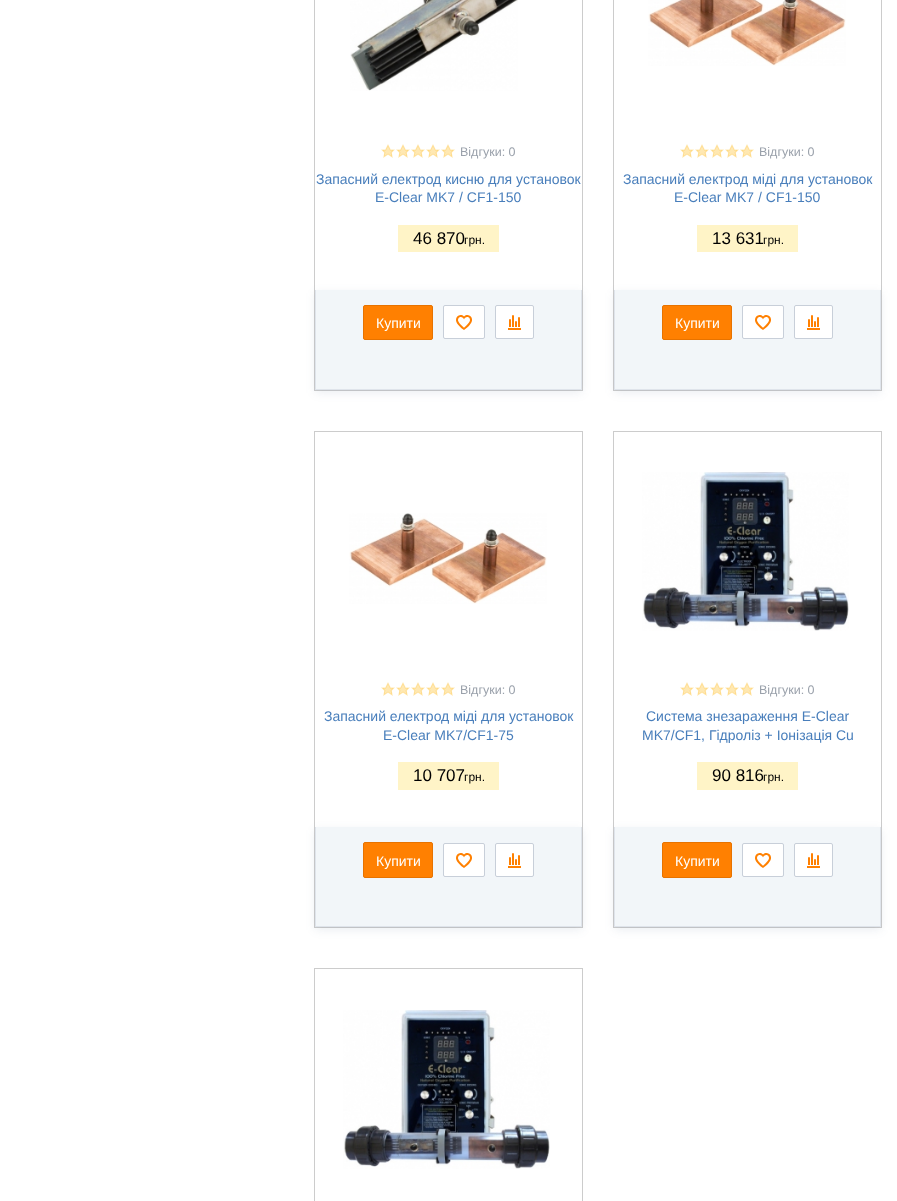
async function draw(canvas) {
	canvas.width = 897;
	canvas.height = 1201;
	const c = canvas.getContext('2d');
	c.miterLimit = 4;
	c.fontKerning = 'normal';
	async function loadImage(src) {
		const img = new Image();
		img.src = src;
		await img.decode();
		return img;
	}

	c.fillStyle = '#fff';
	c.fillRect(0, 0, 897, 1201);
	c.strokeStyle = '#ccc';
	c.strokeRect(314.5, -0.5, 268, 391);
	c.drawImage(await loadImage('img1.png'), 350, 0, 168, 91);
	c.drawImage(await loadImage('img2.png'), 381, 144, 14, 14);
	c.drawImage(await loadImage('img2.png'), 396, 144, 14, 14);
	c.drawImage(await loadImage('img2.png'), 411, 144, 14, 14);
	c.drawImage(await loadImage('img2.png'), 426, 144, 14, 14);
	c.drawImage(await loadImage('img2.png'), 441, 144, 14, 14);
	c.font = '12.5px Liberation Sans';
	c.fillStyle = '#9aa1ab';
	c.fillText('Відгуки: 0', 460, 156);
	c.font = '14px Liberation Sans';
	c.fillStyle = '#487ebb';
	c.fillText('Запасний електрод кисню для установок', 316, 184);
	c.fillText('E-Clear MK7 / CF1-150', 375, 202);
	c.fillStyle = '#fff4c7';
	c.fillRect(398, 225, 101, 27);
	c.font = '17px Liberation Sans';
	c.fillStyle = '#000';
	c.fillText('46 870', 413, 244);
	c.font = '12px Liberation Sans';
	c.fillText('грн.', 464, 244);
	c.fillStyle = '#395d841a';
	c.filter = 'blur(5px)';
	c.beginPath();
	c.rect(315, 293, 267, 100);
	c.fill();
	c.filter = 'none';
	for (const [x, y, w, h, color] of [
		[316, 290, 265, 99, '#f2f6f9'],
		[581, 290, 1, 100, '#dfe4eb'],
		[315, 389, 267, 1, '#dfe4eb'],
		[315, 290, 1, 100, '#dfe4eb'],
	]) {
		c.fillStyle = color;
		c.fillRect(x, y, w, h);
	}
	c.fillStyle = '#ff8001';
	c.beginPath();
	c.roundRect(363.5, 305.5, 69, 34, 1.5);
	c.fill();
	c.strokeStyle = '#e77300';
	c.stroke();
	c.font = '14px Liberation Sans';
	c.fillStyle = '#fff';
	c.fillText('Купити', 376, 328);
	c.beginPath();
	c.roundRect(443.5, 305.5, 41, 33, 1.5);
	c.fill();
	c.strokeStyle = '#c8cfd9';
	c.stroke();
	c.drawImage(await loadImage('img3.png'), 456, 315, 16, 15);
	c.beginPath();
	c.roundRect(495.5, 305.5, 38, 33, 1.5);
	c.fill();
	c.stroke();
	c.drawImage(await loadImage('img4.png'), 508, 315, 13, 15);
	c.strokeStyle = '#ccc';
	c.strokeRect(613.5, -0.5, 268, 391);
	c.drawImage(await loadImage('img5.png'), 648, 0, 198, 66);
	c.drawImage(await loadImage('img2.png'), 680, 144, 14, 14);
	c.drawImage(await loadImage('img2.png'), 695, 144, 14, 14);
	c.drawImage(await loadImage('img2.png'), 710, 144, 14, 14);
	c.drawImage(await loadImage('img2.png'), 725, 144, 14, 14);
	c.drawImage(await loadImage('img2.png'), 740, 144, 14, 14);
	c.font = '12.5px Liberation Sans';
	c.fillStyle = '#9aa1ab';
	c.fillText('Відгуки: 0', 759, 156);
	c.font = '14px Liberation Sans';
	c.fillStyle = '#487ebb';
	c.fillText('Запасний електрод міді для установок', 623, 184);
	c.fillText('E-Clear MK7 / CF1-150', 674, 202);
	c.fillStyle = '#fff4c7';
	c.fillRect(697, 225, 101, 27);
	c.font = '17px Liberation Sans';
	c.fillStyle = '#000';
	c.fillText('13 631', 712, 244);
	c.font = '12px Liberation Sans';
	c.fillText('грн.', 763, 244);
	c.fillStyle = '#395d841a';
	c.filter = 'blur(5px)';
	c.beginPath();
	c.rect(614, 293, 267, 100);
	c.fill();
	c.filter = 'none';
	for (const [x, y, w, h, color] of [
		[615, 290, 265, 99, '#f2f6f9'],
		[880, 290, 1, 100, '#dfe4eb'],
		[614, 389, 267, 1, '#dfe4eb'],
		[614, 290, 1, 100, '#dfe4eb'],
	]) {
		c.fillStyle = color;
		c.fillRect(x, y, w, h);
	}
	c.fillStyle = '#ff8001';
	c.beginPath();
	c.roundRect(662.5, 305.5, 69, 34, 1.5);
	c.fill();
	c.strokeStyle = '#e77300';
	c.stroke();
	c.font = '14px Liberation Sans';
	c.fillStyle = '#fff';
	c.fillText('Купити', 675, 328);
	c.beginPath();
	c.roundRect(742.5, 305.5, 41, 33, 1.5);
	c.fill();
	c.strokeStyle = '#c8cfd9';
	c.stroke();
	c.drawImage(await loadImage('img6.png'), 755, 315, 16, 15);
	c.beginPath();
	c.roundRect(794.5, 305.5, 38, 33, 1.5);
	c.fill();
	c.stroke();
	c.drawImage(await loadImage('img4.png'), 807, 315, 13, 15);
	c.strokeStyle = '#ccc';
	c.strokeRect(314.5, 431.5, 268, 496);
	c.drawImage(await loadImage('img7.png'), 349, 513, 198, 91);
	c.drawImage(await loadImage('img2.png'), 381, 682, 14, 14);
	c.drawImage(await loadImage('img2.png'), 396, 682, 14, 14);
	c.drawImage(await loadImage('img2.png'), 411, 682, 14, 14);
	c.drawImage(await loadImage('img2.png'), 426, 682, 14, 14);
	c.drawImage(await loadImage('img2.png'), 441, 682, 14, 14);
	c.font = '12.5px Liberation Sans';
	c.fillStyle = '#9aa1ab';
	c.fillText('Відгуки: 0', 460, 694);
	c.font = '14px Liberation Sans';
	c.fillStyle = '#487ebb';
	c.fillText('Запасний електрод міді для установок', 324, 721);
	c.fillText('E-Clear MK7/CF1-75', 383, 740);
	c.fillStyle = '#fff4c7';
	c.fillRect(398, 762, 101, 28);
	c.font = '17px Liberation Sans';
	c.fillStyle = '#000';
	c.fillText('10 707', 413, 781);
	c.font = '12px Liberation Sans';
	c.fillText('грн.', 464, 781);
	c.fillStyle = '#395d841a';
	c.filter = 'blur(5px)';
	c.beginPath();
	c.rect(315, 830, 267, 100);
	c.fill();
	c.filter = 'none';
	for (const [x, y, w, h, color] of [
		[316, 827, 265, 99, '#f2f6f9'],
		[581, 827, 1, 100, '#dfe4eb'],
		[315, 926, 267, 1, '#dfe4eb'],
		[315, 827, 1, 100, '#dfe4eb'],
	]) {
		c.fillStyle = color;
		c.fillRect(x, y, w, h);
	}
	c.fillStyle = '#ff8001';
	c.beginPath();
	c.roundRect(363.5, 842.5, 69, 35, 1.5);
	c.fill();
	c.strokeStyle = '#e77300';
	c.stroke();
	c.font = '14px Liberation Sans';
	c.fillStyle = '#fff';
	c.fillText('Купити', 376, 866);
	c.beginPath();
	c.roundRect(443.5, 843.5, 41, 33, 1.5);
	c.fill();
	c.strokeStyle = '#c8cfd9';
	c.stroke();
	c.drawImage(await loadImage('img3.png'), 456, 853, 16, 15);
	c.beginPath();
	c.roundRect(495.5, 843.5, 38, 33, 1.5);
	c.fill();
	c.stroke();
	c.drawImage(await loadImage('img4.png'), 508, 853, 13, 15);
	c.strokeStyle = '#ccc';
	c.strokeRect(613.5, 431.5, 268, 496);
	c.drawImage(await loadImage('img8.png'), 642, 472, 207, 159);
	c.drawImage(await loadImage('img2.png'), 680, 682, 14, 14);
	c.drawImage(await loadImage('img2.png'), 695, 682, 14, 14);
	c.drawImage(await loadImage('img2.png'), 710, 682, 14, 14);
	c.drawImage(await loadImage('img2.png'), 725, 682, 14, 14);
	c.drawImage(await loadImage('img2.png'), 740, 682, 14, 14);
	c.font = '12.5px Liberation Sans';
	c.fillStyle = '#9aa1ab';
	c.fillText('Відгуки: 0', 759, 694);
	c.font = '14px Liberation Sans';
	c.fillStyle = '#487ebb';
	c.fillText('Система знезараження E-Clear', 646, 721);
	c.fillText('MK7/CF1, Гідроліз + Іонізація Cu', 642, 740);
	c.fillStyle = '#fff4c7';
	c.fillRect(697, 762, 101, 28);
	c.font = '17px Liberation Sans';
	c.fillStyle = '#000';
	c.fillText('90 816', 712, 781);
	c.font = '12px Liberation Sans';
	c.fillText('грн.', 763, 781);
	c.fillStyle = '#395d841a';
	c.filter = 'blur(5px)';
	c.beginPath();
	c.rect(614, 830, 267, 100);
	c.fill();
	c.filter = 'none';
	for (const [x, y, w, h, color] of [
		[615, 827, 265, 99, '#f2f6f9'],
		[880, 827, 1, 100, '#dfe4eb'],
		[614, 926, 267, 1, '#dfe4eb'],
		[614, 827, 1, 100, '#dfe4eb'],
	]) {
		c.fillStyle = color;
		c.fillRect(x, y, w, h);
	}
	c.fillStyle = '#ff8001';
	c.beginPath();
	c.roundRect(662.5, 842.5, 69, 35, 1.5);
	c.fill();
	c.strokeStyle = '#e77300';
	c.stroke();
	c.font = '14px Liberation Sans';
	c.fillStyle = '#fff';
	c.fillText('Купити', 675, 866);
	c.beginPath();
	c.roundRect(742.5, 843.5, 41, 33, 1.5);
	c.fill();
	c.strokeStyle = '#c8cfd9';
	c.stroke();
	c.drawImage(await loadImage('img6.png'), 755, 853, 16, 15);
	c.beginPath();
	c.roundRect(794.5, 843.5, 38, 33, 1.5);
	c.fill();
	c.stroke();
	c.drawImage(await loadImage('img4.png'), 807, 853, 13, 15);
	c.strokeStyle = '#ccc';
	c.strokeRect(314.5, 968.5, 268, 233);
	c.drawImage(await loadImage('img9.png'), 343, 1010, 207, 159);
}

draw(document.querySelector('canvas'));
